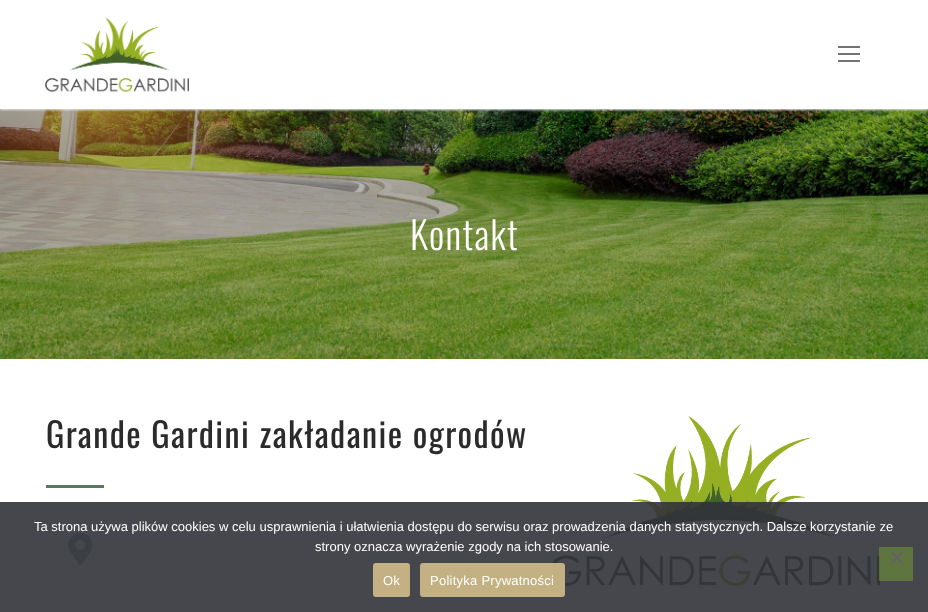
async function draw(canvas) {
	canvas.width = 928;
	canvas.height = 612;
	const c = canvas.getContext('2d');
	c.miterLimit = 4;
	c.fontKerning = 'normal';
	async function loadImage(src) {
		const img = new Image();
		img.src = src;
		await img.decode();
		return img;
	}

	c.fillStyle = '#fff';
	c.fillRect(0, 0, 928, 612);
	c.drawImage(await loadImage('img2.png'), 0, 109, 928, 250);
	c.save();
	c.beginPath();
	c.rect(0, 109, 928, 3);
	c.clip();
	c.fillStyle = '#e1e5ea';
	c.filter = 'blur(1px)';
	c.beginPath();
	c.rect(0, 1, 928, 109);
	c.fill();
	c.filter = 'none';
	c.restore();
	c.drawImage(await loadImage('img1.png'), 45, 17, 144, 75);
	for (const [x, y, w, h, color] of [
		[838, 53, 22, 2, '#737373'],
		[838, 46, 22, 2, '#737373'],
		[838, 60, 22, 2, '#737373'],
	]) {
		c.fillStyle = color;
		c.fillRect(x, y, w, h);
	}
	c.letterSpacing = '1.4px';
	c.font = '300 38px Oswald';
	c.fillStyle = '#fefefd';
	c.fillText('Kontakt', 410, 250);
	c.font = '34.25px Oswald';
	c.fillStyle = '#2b2b2b';
	c.fillText('Grande Gardini zakładanie ogrodów', 46, 448);
	c.fillStyle = '#567a60';
	c.fillRect(46, 485, 58, 3);
	c.drawImage(await loadImage('img3.png'), 68, 533, 25, 32);
	c.drawImage(await loadImage('img4.png'), 552, 416, 328, 170);
	c.fillStyle = '#32323ae6';
	c.fillRect(0, 502, 928, 110);
	c.letterSpacing = '0px';
	c.font = '13px Liberation Sans';
	c.fillStyle = '#fefefd';
	c.fillText('Ta strona używa plików cookies w celu usprawnienia i ułatwienia dostępu do serwisu oraz prowadzenia danych statystycznych. Dalsze korzystanie ze', 34, 531);
	c.fillText('strony oznacza wyrażenie zgody na ich stosowanie.', 315, 551);
	c.fillStyle = '#c3b083';
	c.beginPath();
	c.roundRect(373, 563, 37, 34, 3);
	c.fill();
	c.letterSpacing = '0.25px';
	c.fillStyle = '#fefefd';
	c.fillText('Ok', 383, 585);
	c.fillStyle = '#c3b083';
	c.beginPath();
	c.roundRect(420, 563, 145, 34, 3);
	c.fill();
	c.fillStyle = '#fefefd';
	c.fillText('Polityka Prywatności', 430, 585);
	c.fillStyle = '#78a33280';
	c.beginPath();
	c.roundRect(879, 547, 34, 34, 1);
	c.fill();
	c.fillStyle = '#636367';
	c.beginPath();
	c.moveTo(901.5, 551.5);
	c.lineTo(903, 553);
	c.lineTo(892.5, 563.5);
	c.lineTo(891, 562);
	c.closePath();
	c.fill();
	c.beginPath();
	c.moveTo(891, 553);
	c.lineTo(892.5, 551.5);
	c.lineTo(903, 562);
	c.lineTo(901.5, 563.5);
	c.closePath();
	c.fill();
}

draw(document.querySelector('canvas'));
